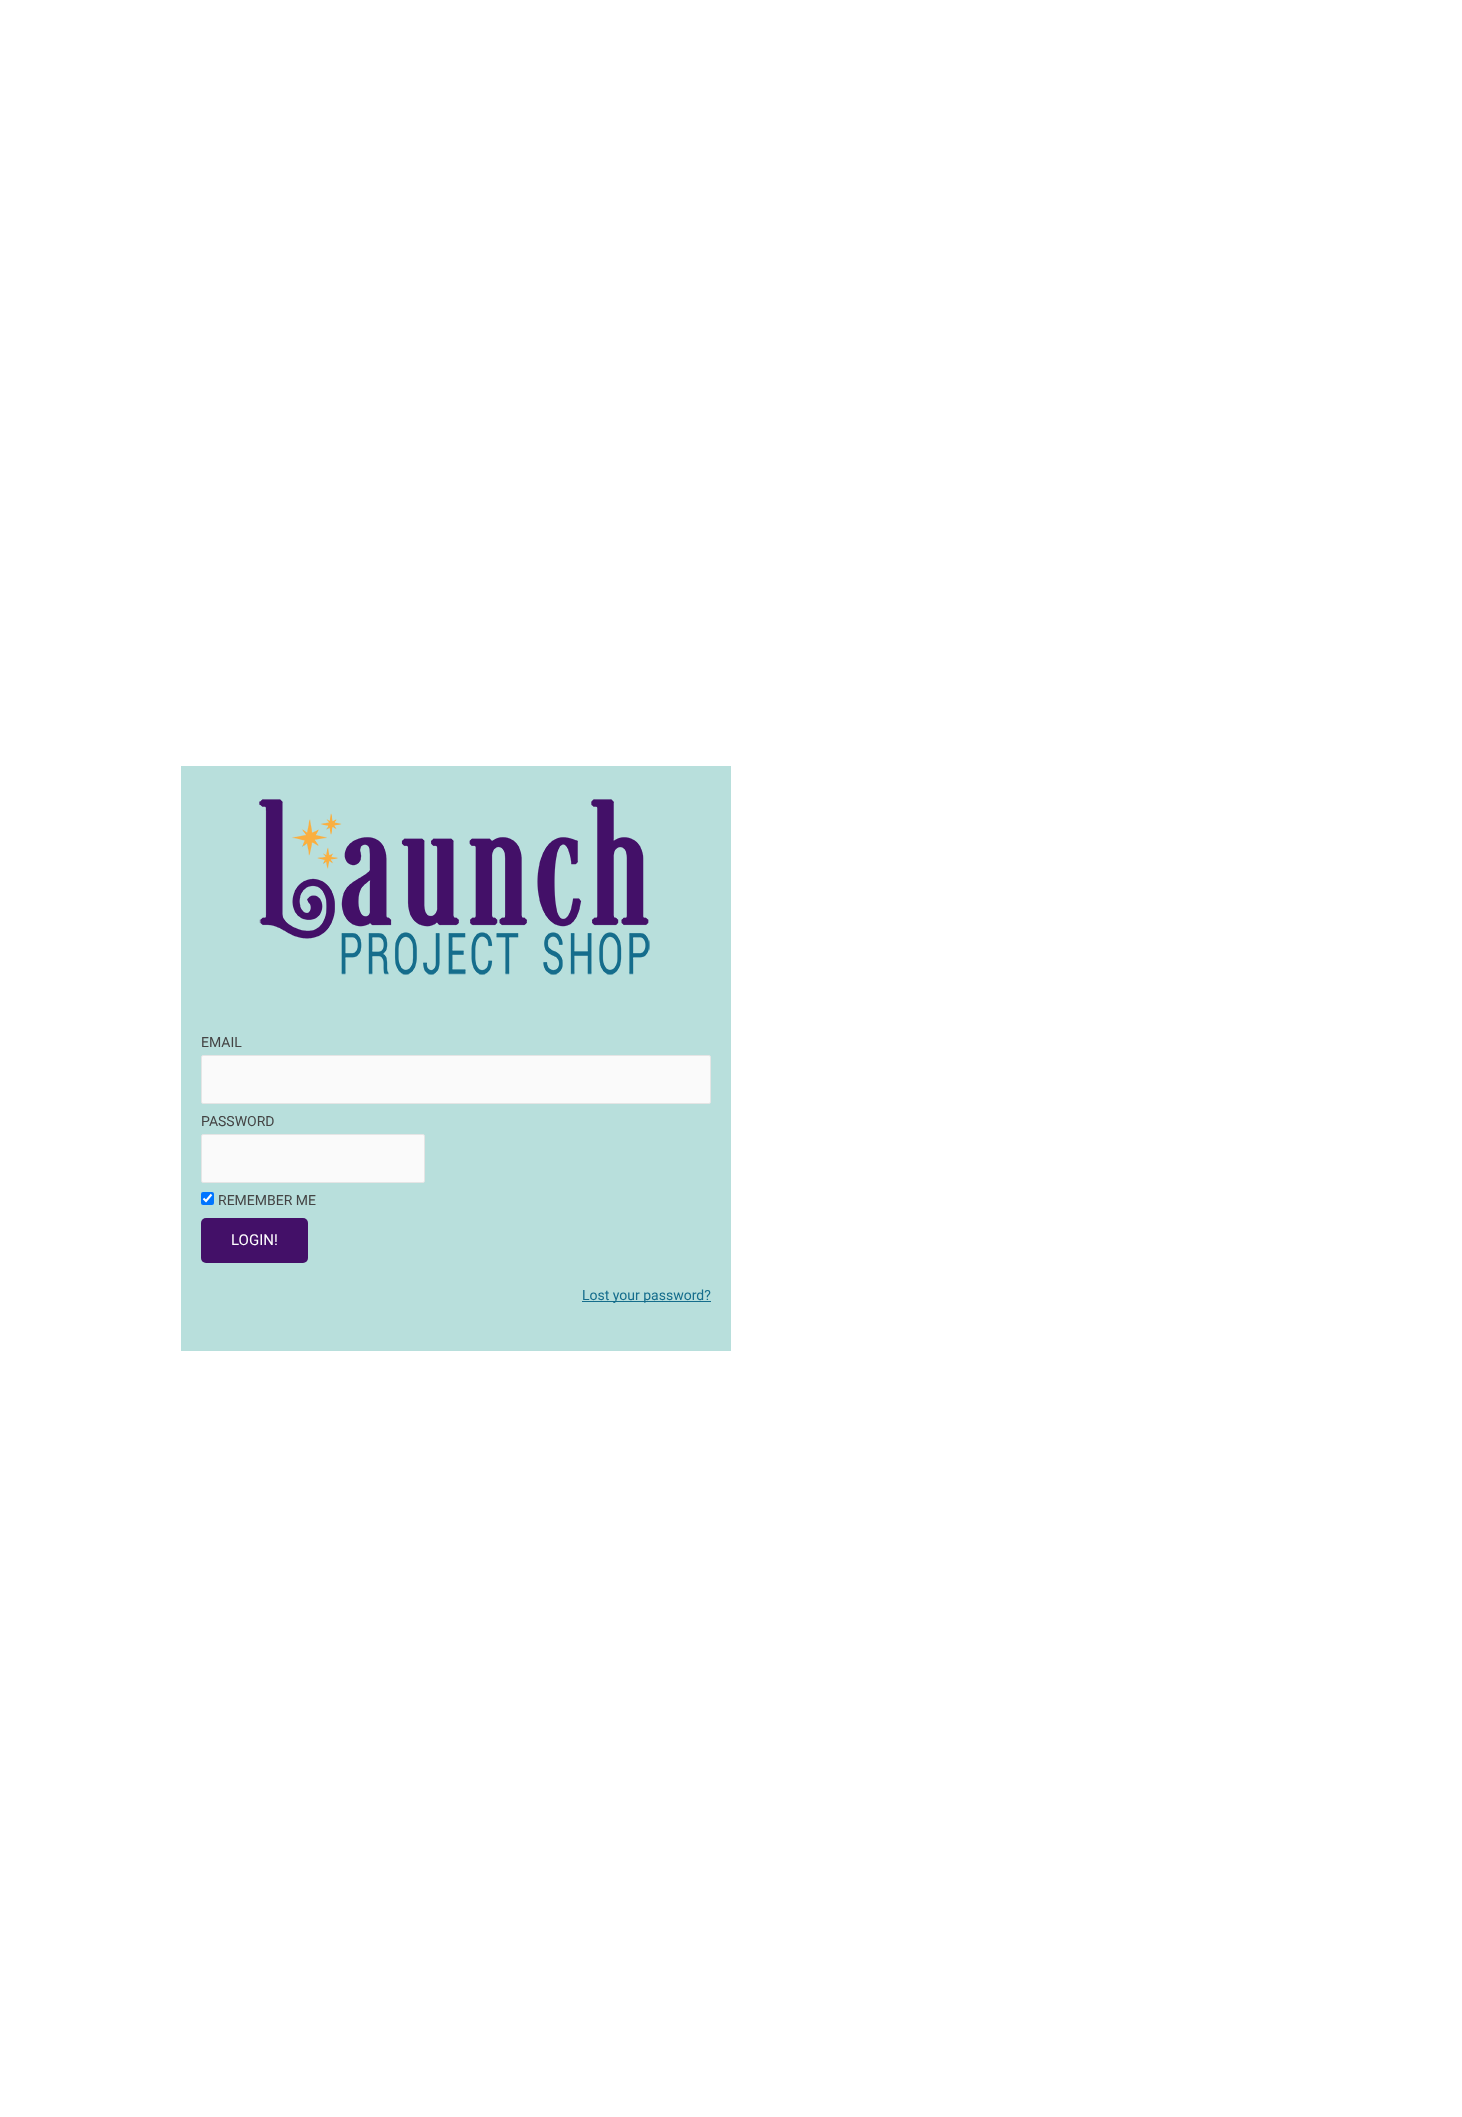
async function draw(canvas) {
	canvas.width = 1462;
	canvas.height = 2117;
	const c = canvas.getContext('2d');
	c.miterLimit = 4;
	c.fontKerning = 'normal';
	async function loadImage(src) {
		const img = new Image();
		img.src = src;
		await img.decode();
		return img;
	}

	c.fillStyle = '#fff';
	c.fillRect(0, 0, 1462, 2117);
	c.fillStyle = '#b8dfdc';
	c.fillRect(181, 766, 550, 585);
	c.drawImage(await loadImage('img1.png'), 259, 799, 391, 176);
	c.font = '14px Roboto';
	c.fillStyle = '#444';
	c.fillText('EMAIL', 201, 1047);
	c.fillStyle = '#fafafa';
	c.beginPath();
	c.roundRect(201.5, 1055.5, 509, 48, 1.5);
	c.fill();
	c.strokeStyle = '#e5e5e5';
	c.stroke();
	c.fillStyle = '#444';
	c.fillText('PASSWORD', 201, 1126);
	c.fillStyle = '#fafafa';
	c.beginPath();
	c.roundRect(201.5, 1134.5, 223, 48, 1.5);
	c.fill();
	c.stroke();
	c.fillStyle = '#0075ff';
	c.beginPath();
	c.roundRect(201, 1192, 13, 13, 2);
	c.fill();
	c.beginPath();
	c.moveTo(203.5, 1198.5);
	c.lineTo(206, 1201);
	c.lineTo(211.5, 1194.5);
	c.strokeStyle = '#fff';
	c.lineWidth = 2.1;
	c.stroke();
	c.fillStyle = '#444';
	c.fillText('REMEMBER ME', 218, 1205);
	c.fillStyle = '#431068';
	c.beginPath();
	c.roundRect(201, 1218, 107, 45, 5);
	c.fill();
	c.font = '15px Roboto';
	c.fillStyle = '#fff';
	c.fillText('LOGIN!', 231, 1245);
	c.fillStyle = '#156d8c';
	c.fillRect(582, 1301, 129, 1);
	c.font = '14px Roboto';
	c.fillText('Lost your password?', 582, 1300);
}

draw(document.querySelector('canvas'));
